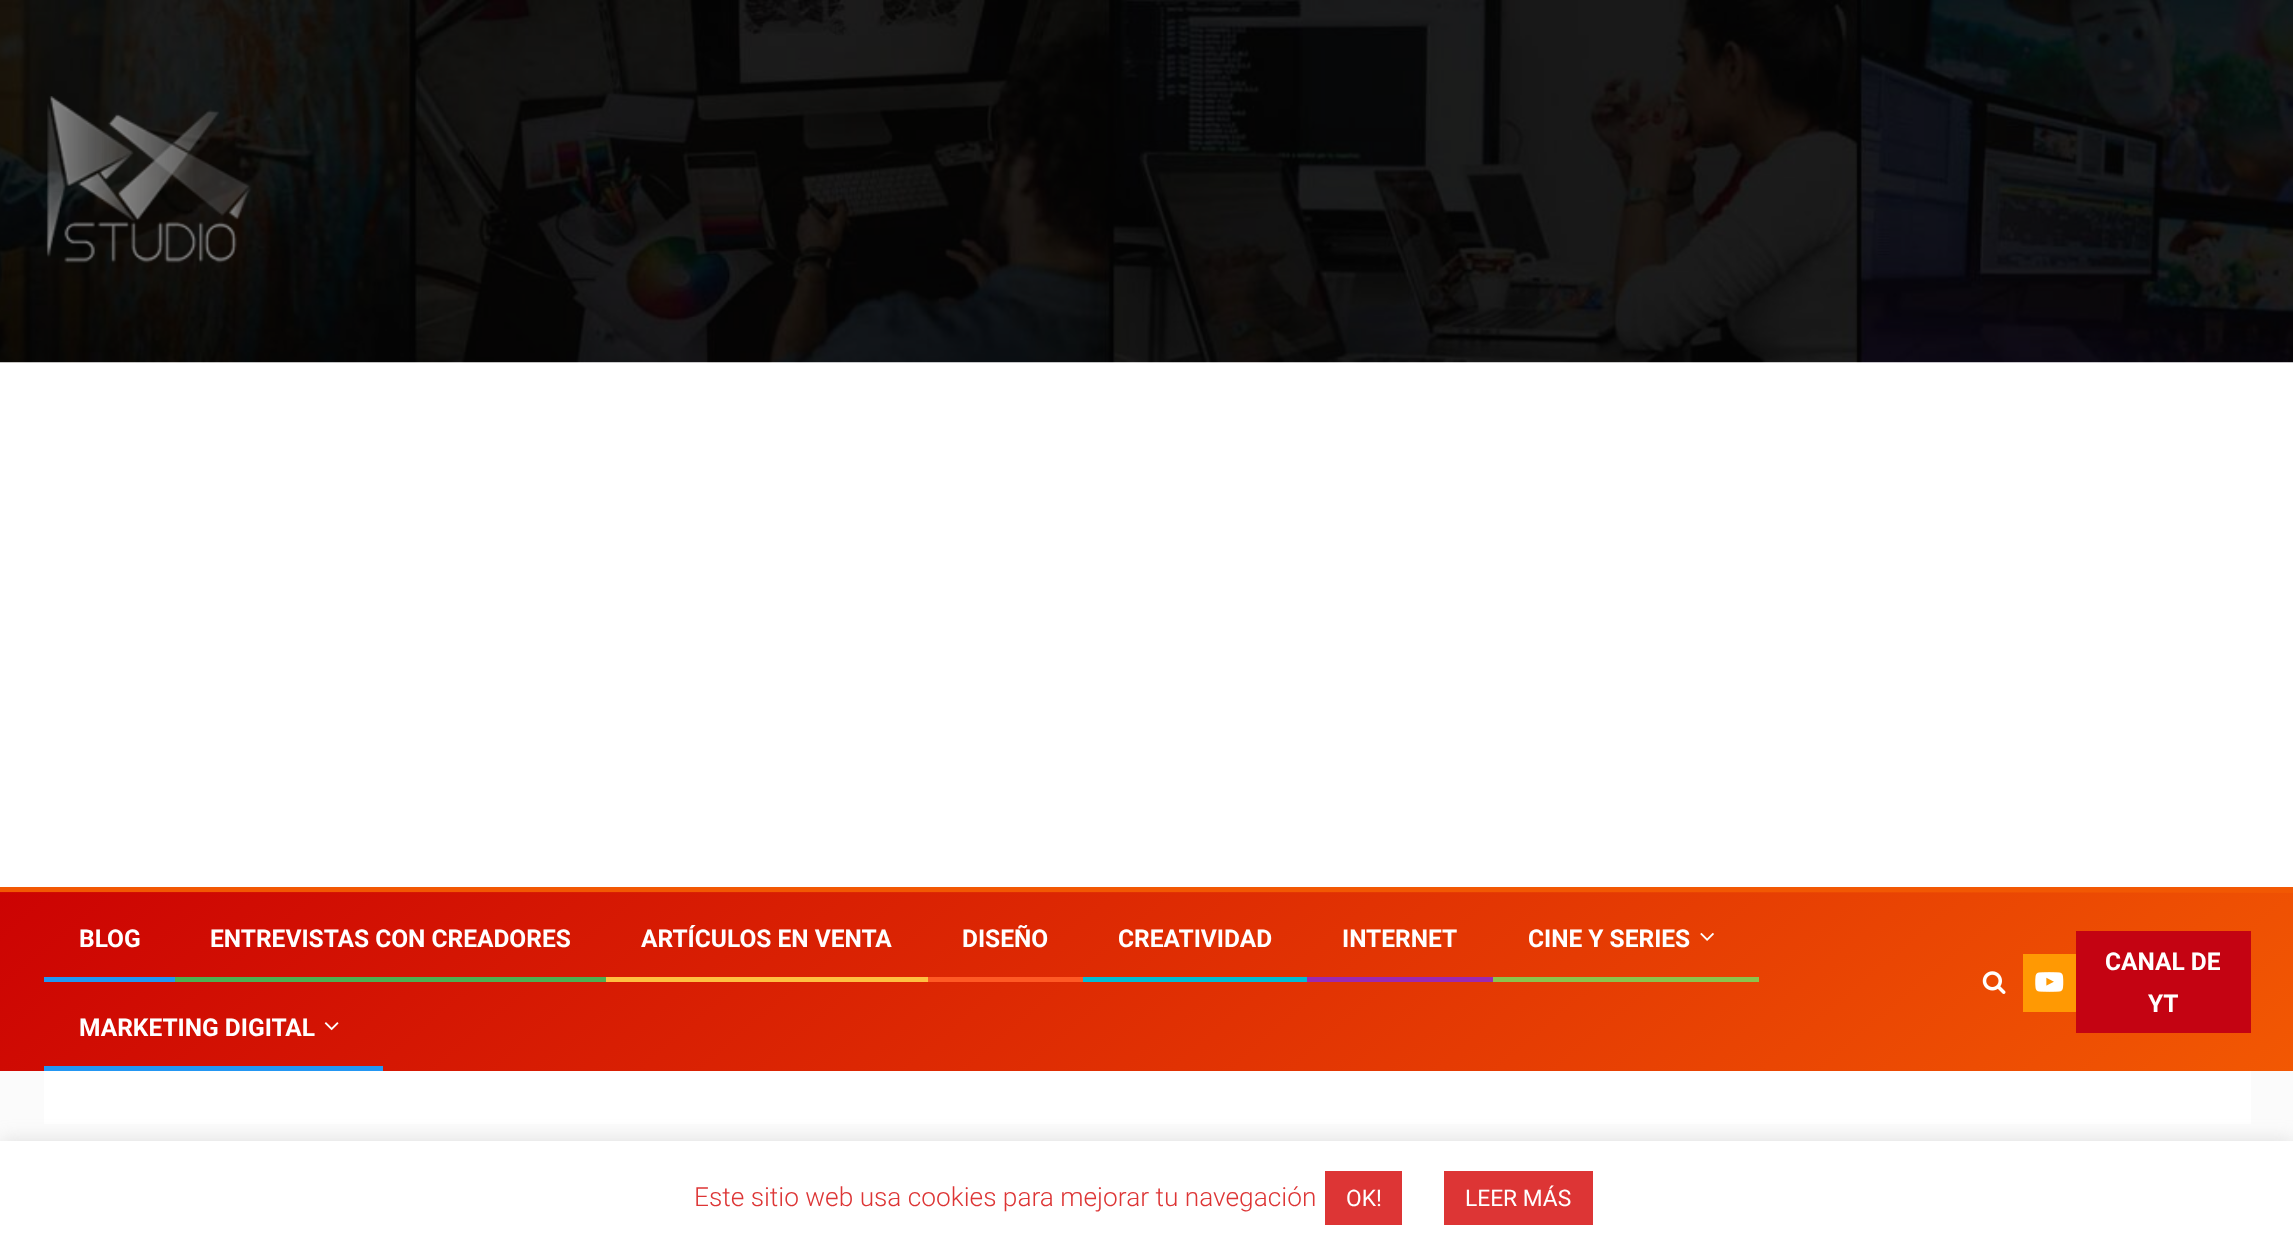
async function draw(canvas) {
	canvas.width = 2293;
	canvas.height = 1254;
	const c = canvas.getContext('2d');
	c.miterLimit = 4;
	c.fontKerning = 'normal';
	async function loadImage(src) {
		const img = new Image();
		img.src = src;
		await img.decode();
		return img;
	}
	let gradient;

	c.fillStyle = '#fbfbfb';
	c.fillRect(0, 0, 2293, 1254);
	c.fillStyle = '#fff';
	c.fillRect(0, 362, 2293, 525);
	c.drawImage(await loadImage('img1.png'), 0, 0, 2293, 363);
	c.drawImage(await loadImage('img2.png'), 46, 96, 205, 167);
	gradient = c.createLinearGradient(629, 186, 1665, 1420);
	gradient.addColorStop(0, '#cc0303');
	gradient.addColorStop(1, '#f25803');
	c.fillStyle = gradient;
	c.fillRect(0, 892, 2293, 1);
	gradient = c.createLinearGradient(629, 365, 1665, 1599);
	gradient.addColorStop(0, '#cc0303');
	gradient.addColorStop(1, '#f25803');
	c.fillStyle = gradient;
	c.fillRect(0, 893, 2293, 178);
	c.fillStyle = '#f25803';
	c.fillRect(0, 887, 2293, 5);
	c.font = 'bold 24.5px Roboto';
	c.fillStyle = '#fff';
	c.fillText('BLOG', 79, 947);
	c.fillStyle = '#2397f3';
	c.fillRect(44, 977, 131, 5);
	c.fillStyle = '#fff';
	c.fillText('ENTREVISTAS CON CREADORES', 210, 947);
	c.fillStyle = '#4eb052';
	c.fillRect(175, 977, 431, 5);
	c.fillStyle = '#fff';
	c.fillText('ARTÍCULOS EN VENTA', 641, 947);
	c.fillStyle = '#ffc041';
	c.fillRect(606, 977, 322, 5);
	c.fillStyle = '#fff';
	c.fillText('DISEÑO', 962, 947);
	c.fillStyle = '#ff5924';
	c.fillRect(928, 977, 155, 5);
	c.fillStyle = '#fff';
	c.fillText('CREATIVIDAD', 1118, 947);
	c.fillStyle = '#03bdd4';
	c.fillRect(1083, 977, 224, 5);
	c.fillStyle = '#fff';
	c.fillText('INTERNET', 1342, 947);
	c.fillStyle = '#9d29b1';
	c.fillRect(1307, 977, 186, 5);
	c.fillStyle = '#fff';
	c.fillText('CINE Y SERIES', 1528, 947);
	c.drawImage(await loadImage('img3.png'), 1700, 932, 14, 9);
	c.fillStyle = '#8cc44c';
	c.fillRect(1493, 977, 266, 5);
	c.fillStyle = '#fff';
	c.fillText('MARKETING DIGITAL', 79, 1036);
	c.drawImage(await loadImage('img4.png'), 324, 1022, 15, 9);
	c.fillStyle = '#2397f3';
	c.fillRect(44, 1066, 339, 5);
	c.drawImage(await loadImage('img5.png'), 1982, 971, 24, 23);
	c.fillStyle = '#ff9903';
	c.fillRect(2023, 954, 53, 58);
	c.drawImage(await loadImage('img6.png'), 2035, 972, 29, 20);
	c.fillStyle = '#c40312';
	c.fillRect(2076, 931, 175, 102);
	c.fillStyle = '#fff';
	c.fillText('CANAL DE', 2105, 970);
	c.fillText('YT', 2148, 1012);
	c.fillRect(44, 1071, 2207, 53);
	c.fillStyle = '#adacac4d';
	c.filter = 'blur(9px)';
	c.beginPath();
	c.rect(0, 1139, 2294, 114);
	c.fill();
	c.filter = 'none';
	c.fillStyle = '#fff';
	c.fillRect(0, 1141, 2293, 113);
	c.font = '300 26.25px Roboto';
	c.fillStyle = '#dd3535';
	c.fillText('Este sitio web usa cookies para mejorar tu navegación', 694, 1206);
	c.fillRect(1325, 1171, 77, 54);
	c.font = '22.75px Roboto';
	c.fillStyle = '#fff';
	c.fillText('OK!', 1346, 1206);
	c.fillStyle = '#dd3535';
	c.fillRect(1444, 1171, 149, 54);
	c.fillStyle = '#fff';
	c.fillText('LEER MÁS', 1465, 1206);
}

draw(document.querySelector('canvas'));
